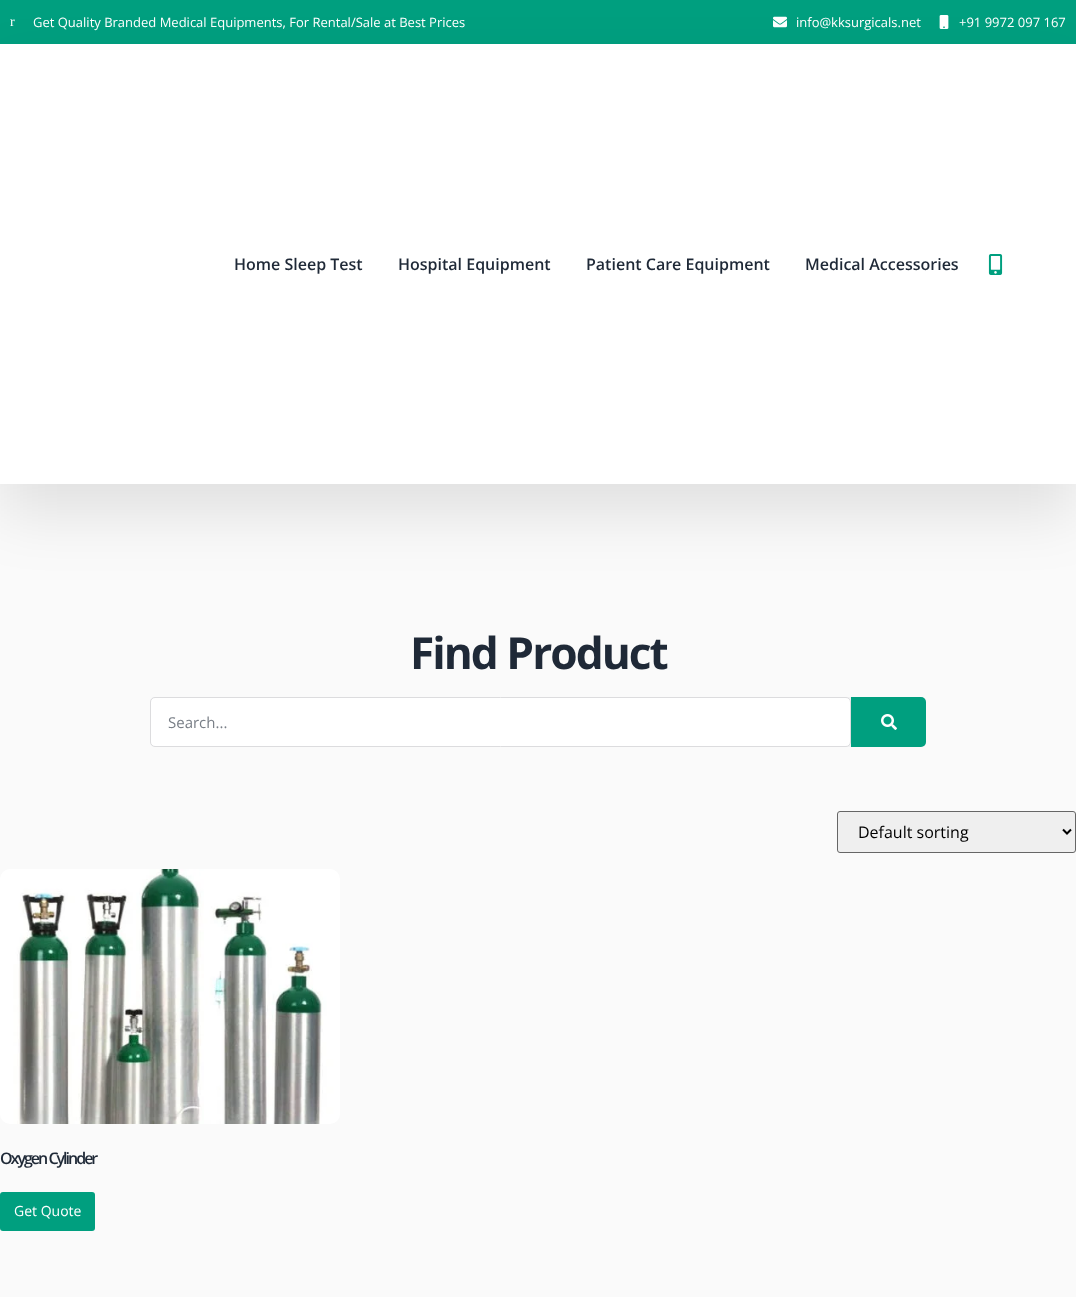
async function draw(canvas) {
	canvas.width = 1076;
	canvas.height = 1297;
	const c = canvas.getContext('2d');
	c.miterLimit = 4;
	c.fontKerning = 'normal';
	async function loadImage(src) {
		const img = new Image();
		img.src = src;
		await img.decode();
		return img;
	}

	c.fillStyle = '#fafafa';
	c.fillRect(0, 0, 1076, 1297);
	c.fillStyle = '#009f7f';
	c.fillRect(0, 0, 1076, 44);
	c.font = '14px Liberation Serif';
	c.fillStyle = '#fff';
	c.fillText('r', 10, 26);
	c.font = '13px Open Sans';
	c.fillText('Get Quality Branded Medical Equipments, For Rental/Sale at Best Prices', 33, 27);
	c.drawImage(await loadImage('img1.png'), 773, 16, 14, 12);
	c.fillText('info@kksurgicals.net', 796, 27);
	c.drawImage(await loadImage('img2.png'), 939, 15, 10, 14);
	c.fillText('+91 9972 097 167', 959, 27);
	c.fillStyle = '#0000001a';
	c.filter = 'blur(30px)';
	c.beginPath();
	c.rect(0, 74, 1076, 440);
	c.fill();
	c.filter = 'none';
	c.fillStyle = '#fff';
	c.fillRect(0, 44, 1076, 440);
	c.font = '600 16px Open Sans';
	c.fillStyle = '#1f2937';
	for (const [text, x, y] of [
		['Home Sleep Test', 234, 270],
		['Hospital Equipment', 398, 270],
		['Patient Care Equipment', 586, 270],
		['Medical Accessories', 805, 270],
	]) {
		c.fillText(text, x, y);
	}
	c.drawImage(await loadImage('img3.png'), 988, 254, 15, 21);
	c.letterSpacing = '-2px';
	c.font = 'bold 44.25px Open Sans';
	c.fillText('Find Product', 410, 669);
	c.fillStyle = '#f1f2f3';
	c.beginPath();
	c.roundRect(150, 697, 776, 50, 5);
	c.fill();
	c.fillStyle = '#fff';
	c.beginPath();
	c.roundRect(150.5, 697.5, 700, 49, 4.5);
	c.fill();
	c.strokeStyle = '#dcdcde';
	c.stroke();
	c.letterSpacing = '0px';
	c.font = '15px Open Sans';
	c.fillStyle = '#797f87';
	c.fillText('Search...', 168, 728);
	c.fillStyle = '#009f7f';
	c.beginPath();
	c.roundRect(851, 697, 75, 50, [0, 5, 5, 0]);
	c.fill();
	c.drawImage(await loadImage('img4.png'), 881, 714, 16, 16);
	c.fillStyle = '#efefef';
	c.beginPath();
	c.roundRect(837.5, 811.5, 238, 41, 2.5);
	c.fill();
	c.strokeStyle = '#666';
	c.stroke();
	c.beginPath();
	c.moveTo(1063, 829.5);
	c.lineTo(1067, 833.5);
	c.lineTo(1071, 829.5);
	c.strokeStyle = '#000';
	c.lineWidth = 2;
	c.stroke();
	c.font = '16px Open Sans';
	c.fillStyle = '#000';
	c.fillText('Default sorting', 858, 838);
	c.drawImage(await loadImage('img5.png'), 0, 869, 340, 255);
	c.letterSpacing = '-2px';
	c.font = '600 16px Open Sans';
	c.fillStyle = '#1f2937';
	c.fillText('Oxygen Cylinder', 0, 1164);
	c.fillStyle = '#009f7f';
	c.beginPath();
	c.roundRect(0, 1192, 95, 39, 3);
	c.fill();
	c.letterSpacing = '0px';
	c.font = '14px Open Sans';
	c.fillStyle = '#fff';
	c.fillText('Get Quote', 14, 1216);
}

draw(document.querySelector('canvas'));
